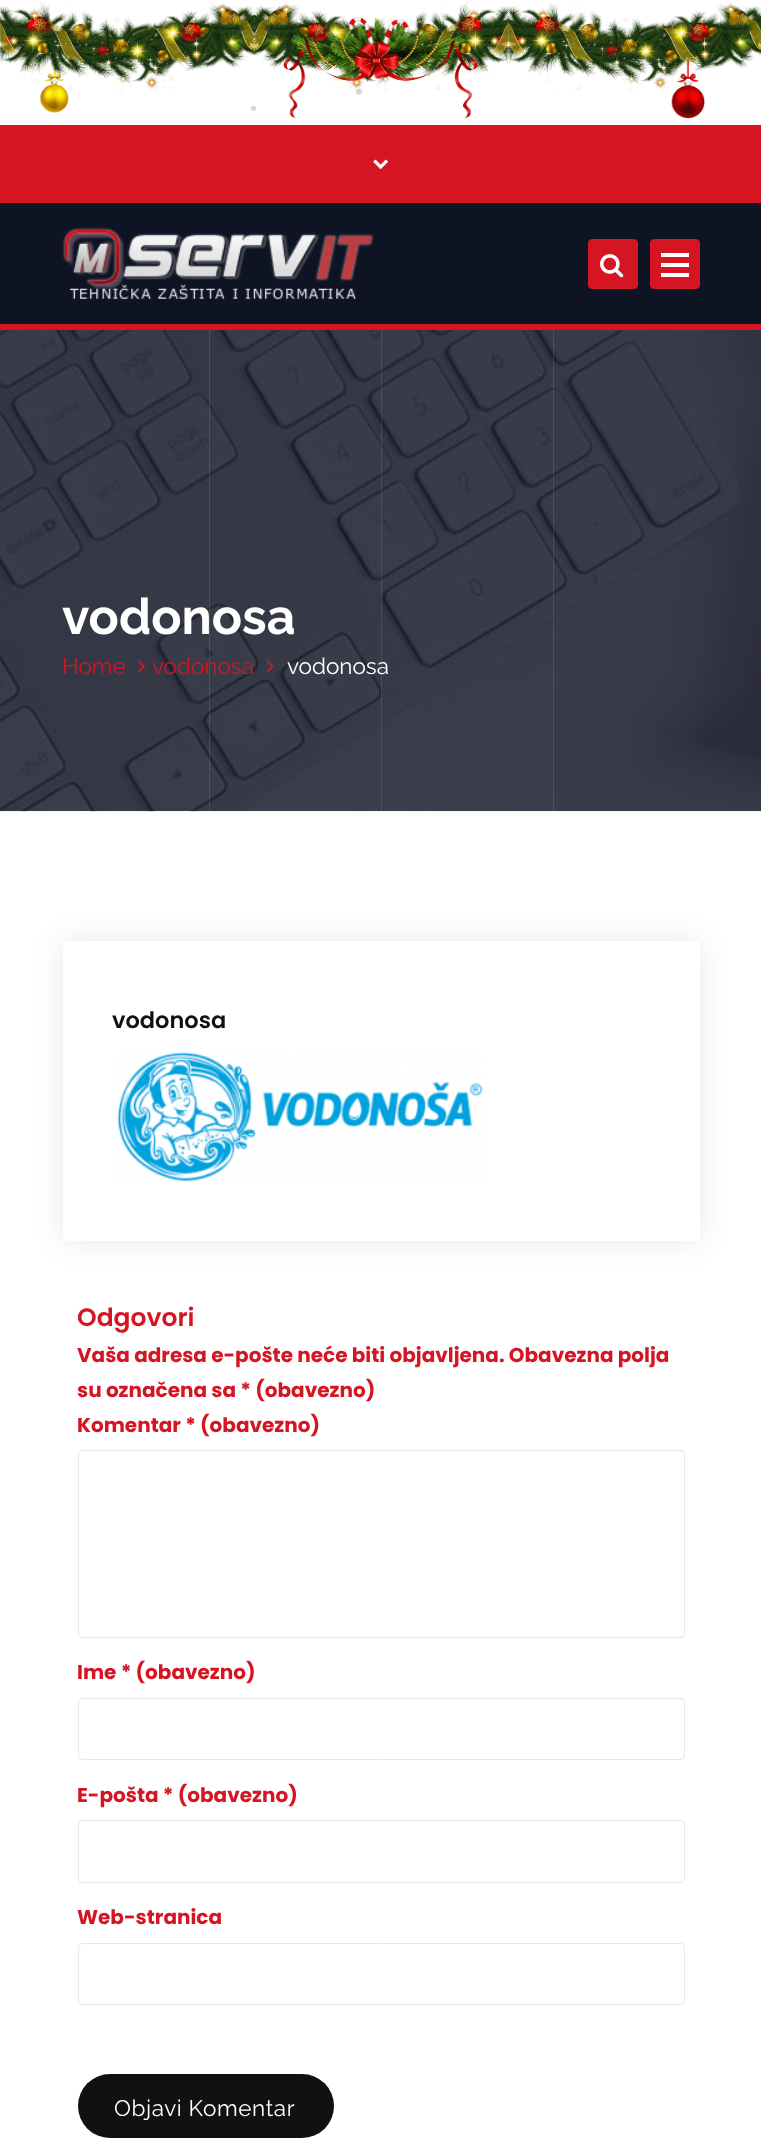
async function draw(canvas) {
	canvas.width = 761;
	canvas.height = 2151;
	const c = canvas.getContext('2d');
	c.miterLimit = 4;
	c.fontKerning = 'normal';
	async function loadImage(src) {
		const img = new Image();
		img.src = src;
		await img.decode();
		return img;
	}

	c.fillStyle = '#fff';
	c.fillRect(0, 0, 761, 2151);
	c.drawImage(await loadImage('img1.png'), 0, 0, 761, 119);
	c.font = '22.5px Liberation Sans';
	c.fillStyle = '#d6d5d5';
	c.fillText('•', 355, 99);
	c.font = '20px Liberation Sans';
	c.fillText('•', 250, 115);
	c.fillStyle = '#d61523';
	c.fillRect(0, 125, 761, 78);
	c.drawImage(await loadImage('img2.png'), 373, 159, 15, 10);
	c.fillStyle = '#0f1425';
	c.fillRect(0, 203, 761, 121);
	c.fillStyle = '#d61523';
	c.fillRect(0, 324, 761, 6);
	c.drawImage(await loadImage('img3.png'), 62, 227, 312, 73);
	c.beginPath();
	c.roundRect(588.5, 239.5, 49, 49, 3.5);
	c.fill();
	c.strokeStyle = '#d61523';
	c.stroke();
	c.drawImage(await loadImage('img4.png'), 600, 254, 24, 24);
	c.beginPath();
	c.roundRect(650.5, 239.5, 49, 49, 3.5);
	c.fill();
	c.stroke();
	for (const [x, y, w, h, color] of [
		[661, 253, 28, 4, '#fff'],
		[661, 263, 28, 4, '#fff'],
		[661, 273, 28, 4, '#fff'],
	]) {
		c.fillStyle = color;
		c.fillRect(x, y, w, h);
	}
	c.drawImage(await loadImage('img5.png'), 0, 330, 761, 482);
	for (const [x, y, w, h, color] of [
		[209, 330, 1, 481, '#ffffff1a'],
		[381, 330, 1, 481, '#ffffff1a'],
		[553, 330, 1, 481, '#ffffff1a'],
	]) {
		c.fillStyle = color;
		c.fillRect(x, y, w, h);
	}
	c.font = 'bold 50px Raleway';
	c.fillStyle = '#fff';
	c.fillText('vodonosa', 62, 634);
	c.font = '22.5px Raleway';
	c.fillStyle = '#d61523';
	c.fillText('Home', 62, 674);
	c.drawImage(await loadImage('img6.png'), 137, 660, 8, 13);
	c.fillText('vodonosa', 152, 674);
	c.drawImage(await loadImage('img7.png'), 266, 660, 8, 13);
	c.fillStyle = '#fff';
	c.fillText('vodonosa', 287, 674);
	c.fillStyle = '#00000017';
	c.filter = 'blur(15.5px)';
	c.beginPath();
	c.rect(63, 941, 637, 300);
	c.fill();
	c.filter = 'none';
	c.fillStyle = '#fff';
	c.fillRect(63, 941, 637, 300);
	c.font = '600 22.5px Poppins';
	c.fillStyle = '#111';
	c.fillText('vodonosa', 112, 1028);
	c.drawImage(await loadImage('img8.png'), 117, 1052, 366, 130);
	c.font = '600 25px Poppins';
	c.fillStyle = '#d61523';
	c.fillText('Odgovori', 77, 1326);
	c.font = 'bold 20px Poppins';
	for (const [text, x, y] of [
		['Vaša adresa e-pošte neće biti objavljena. Obavezna polja', 77, 1362],
		['su označena sa * (obavezno)', 77, 1397],
		['Komentar * (obavezno)', 77, 1432],
	]) {
		c.fillText(text, x, y);
	}
	c.beginPath();
	c.roundRect(78.5, 1450.5, 606, 187, 3.5);
	c.strokeStyle = '#e9e9ea';
	c.stroke();
	c.fillText('Ime * (obavezno)', 77, 1679);
	c.beginPath();
	c.roundRect(78.5, 1698.5, 606, 61, 3.5);
	c.stroke();
	c.fillText('E-pošta * (obavezno)', 77, 1802);
	c.beginPath();
	c.roundRect(78.5, 1820.5, 606, 62, 3.5);
	c.stroke();
	c.fillText('Web-stranica', 77, 1924);
	c.beginPath();
	c.roundRect(78.5, 1943.5, 606, 61, 3.5);
	c.stroke();
	c.fillStyle = '#111';
	c.beginPath();
	c.roundRect(78, 2074, 256, 64, 32);
	c.fill();
	c.letterSpacing = '0.6px';
	c.font = '22.5px Raleway';
	c.fillStyle = '#fff';
	c.fillText('Objavi Komentar', 114, 2116);
}

draw(document.querySelector('canvas'));
